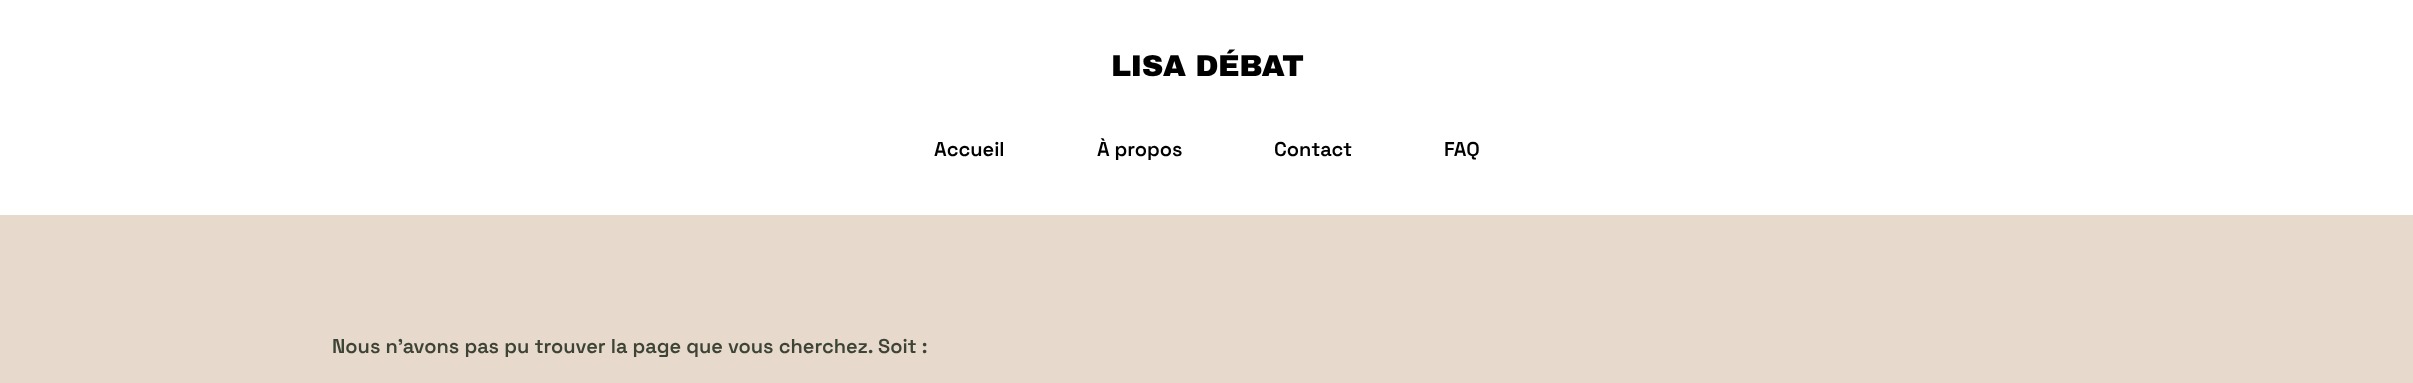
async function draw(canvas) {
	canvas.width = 2413;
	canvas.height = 383;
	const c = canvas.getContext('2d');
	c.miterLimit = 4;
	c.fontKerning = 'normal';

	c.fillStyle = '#e7d9cb';
	c.fillRect(0, 0, 2413, 383);
	c.fillStyle = '#fff';
	c.fillRect(0, 0, 2413, 215);
	c.letterSpacing = '-0.5px';
	c.font = '900 30px Archivo Black';
	c.fillStyle = '#000';
	c.fillText('LISA DÉBAT', 1111, 76);
	c.letterSpacing = '0px';
	c.font = '600 20px Space Grotesk';
	for (const [text, x, y] of [
		['Accueil', 934, 156],
		['À propos', 1097, 156],
		['Contact', 1274, 156],
		['FAQ', 1444, 156],
	]) {
		c.fillText(text, x, y);
	}
	c.fillStyle = '#3d4435';
	c.fillText('Nous n\'avons pas pu trouver la page que vous cherchez. Soit :', 332, 353);
}

draw(document.querySelector('canvas'));
